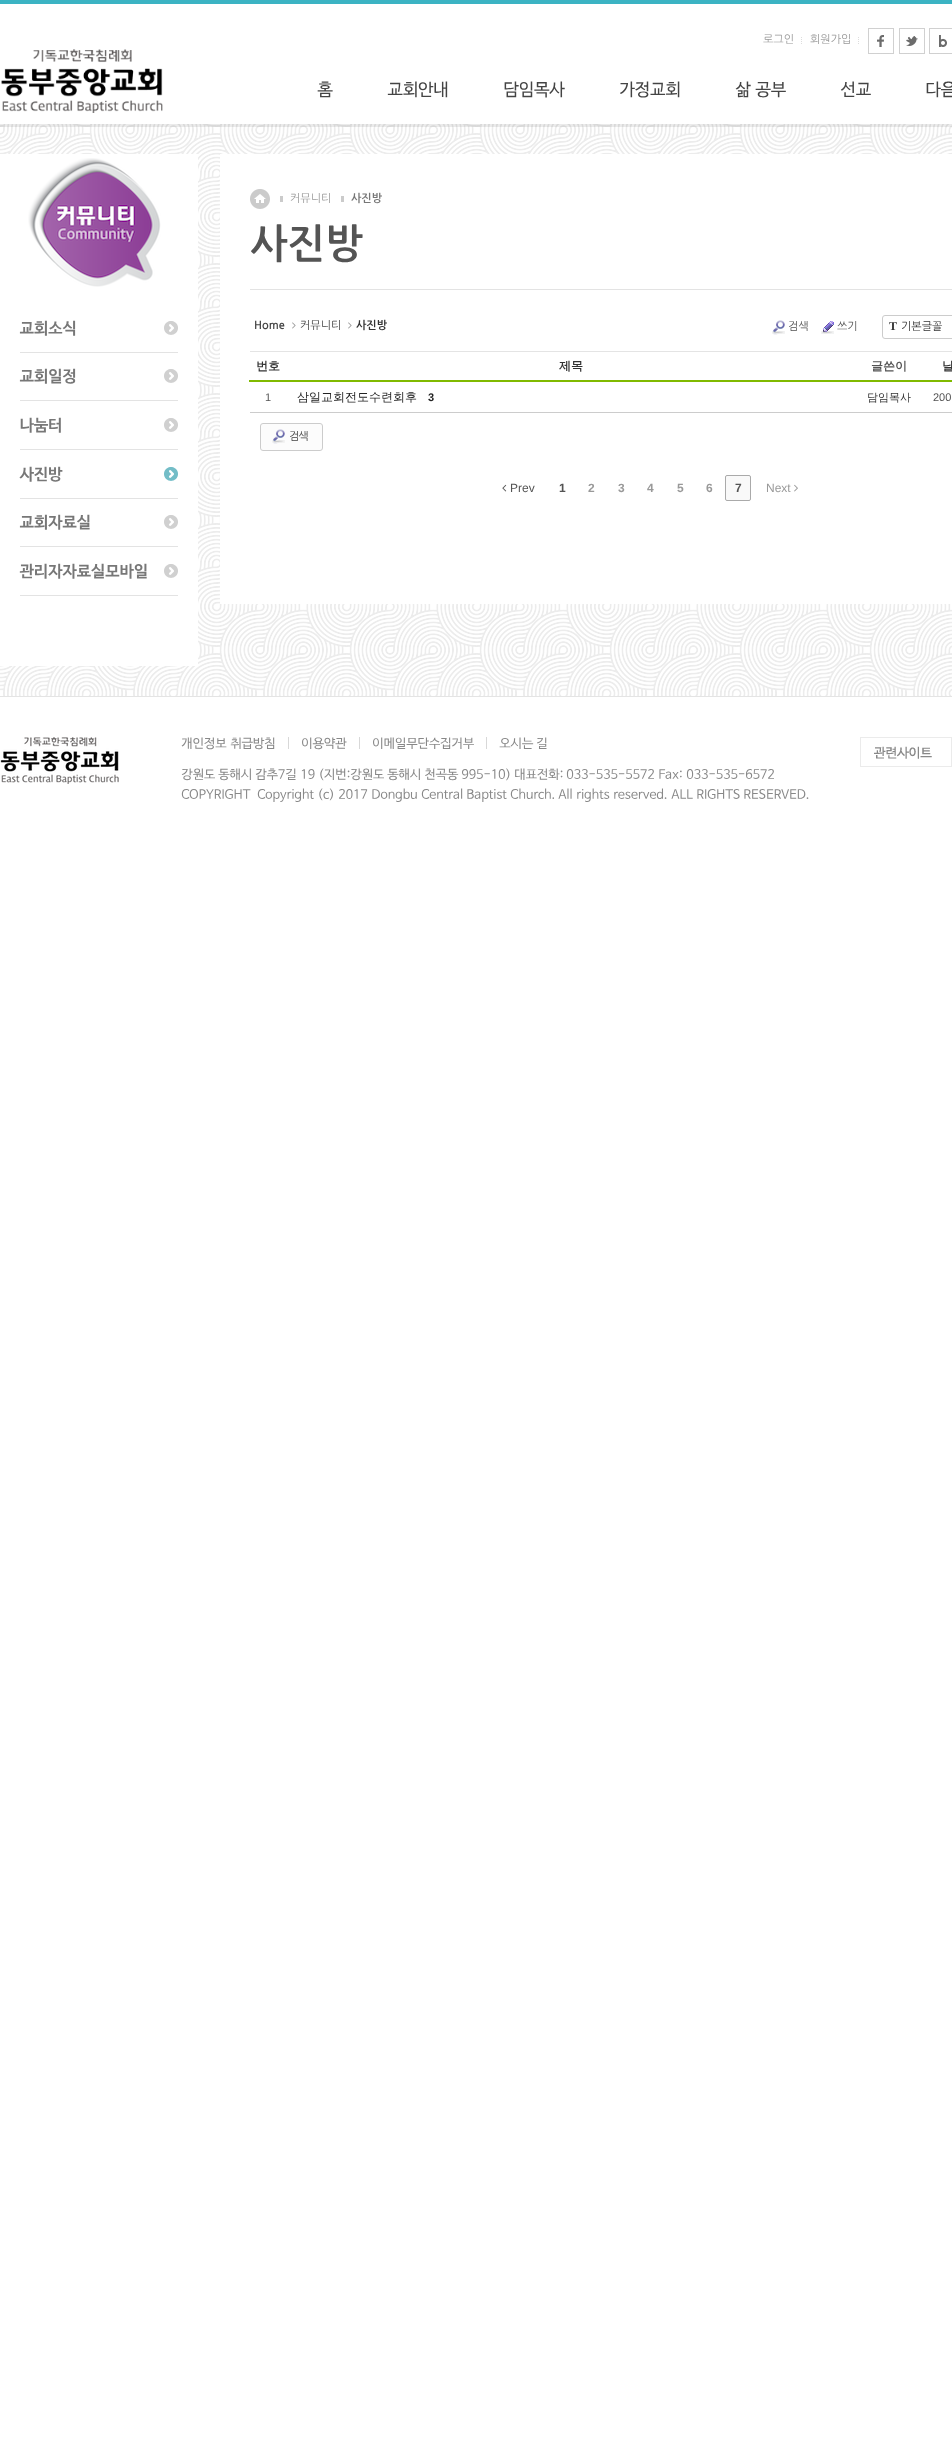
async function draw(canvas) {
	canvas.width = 952;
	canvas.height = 2456;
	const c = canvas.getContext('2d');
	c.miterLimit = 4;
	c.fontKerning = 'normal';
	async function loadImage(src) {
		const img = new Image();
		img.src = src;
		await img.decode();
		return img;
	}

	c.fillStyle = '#fff';
	c.fillRect(0, 0, 952, 2456);
	c.drawImage(await loadImage('img1.png'), 0, 124, 952, 572);
	c.fillStyle = '#3bb3c3';
	c.fillRect(0, 0, 952, 4);
	c.font = '11px NanumGothic';
	c.fillStyle = '#999';
	c.fillText('로그인', 763, 43);
	c.drawImage(await loadImage('img2.png'), 801, 37, 1, 7);
	c.fillText('회원가입', 810, 43);
	c.drawImage(await loadImage('img2.png'), 858, 37, 1, 7);
	c.drawImage(await loadImage('img3.png'), 868, 28, 26, 26);
	c.drawImage(await loadImage('img4.png'), 899, 28, 26, 26);
	c.drawImage(await loadImage('img5.png'), 929, 28, 23, 26);
	c.drawImage(await loadImage('img6.png'), 1, 49, 162, 64);
	c.drawImage(await loadImage('img7.png'), 317, 81, 16, 17);
	c.drawImage(await loadImage('img8.png'), 387, 81, 61, 17);
	c.drawImage(await loadImage('img9.png'), 504, 81, 61, 17);
	c.drawImage(await loadImage('img10.png'), 620, 81, 60, 17);
	c.drawImage(await loadImage('img11.png'), 735, 81, 16, 17);
	c.drawImage(await loadImage('img12.png'), 755, 82, 31, 16);
	c.drawImage(await loadImage('img13.png'), 840, 81, 31, 16);
	c.drawImage(await loadImage('img14.png'), 926, 81, 26, 17);
	c.fillStyle = '#00000014';
	c.fillRect(0, 124, 952, 3);
	c.fillStyle = '#fff';
	c.fillRect(0, 154, 198, 512);
	c.drawImage(await loadImage('img15.png'), 28, 158, 133, 129);
	c.drawImage(await loadImage('img16.png'), 164, 321, 14, 14);
	c.fillStyle = '#e3e3e3';
	c.fillRect(20, 352, 158, 1);
	c.drawImage(await loadImage('img17.png'), 19, 320, 57, 16);
	c.drawImage(await loadImage('img16.png'), 164, 369, 14, 14);
	c.fillRect(20, 400, 158, 1);
	c.drawImage(await loadImage('img18.png'), 19, 368, 57, 16);
	c.drawImage(await loadImage('img16.png'), 164, 418, 14, 14);
	c.fillRect(20, 449, 158, 1);
	c.drawImage(await loadImage('img19.png'), 20, 417, 41, 16);
	c.drawImage(await loadImage('img20.png'), 164, 467, 14, 14);
	c.fillRect(20, 498, 158, 1);
	c.drawImage(await loadImage('img21.png'), 19, 466, 44, 16);
	c.drawImage(await loadImage('img16.png'), 164, 515, 14, 14);
	c.fillRect(20, 546, 158, 1);
	c.drawImage(await loadImage('img22.png'), 19, 514, 71, 16);
	c.drawImage(await loadImage('img16.png'), 164, 564, 14, 14);
	c.fillRect(20, 595, 158, 1);
	c.drawImage(await loadImage('img23.png'), 19, 563, 128, 16);
	c.fillStyle = '#fff';
	c.fillRect(220, 154, 732, 450);
	c.fillStyle = '#e3e3e3';
	c.fillRect(250, 289, 702, 1);
	c.drawImage(await loadImage('img24.png'), 250, 189, 20, 20);
	c.fillStyle = '#999';
	c.fillText('커뮤니티', 290, 202);
	c.fillStyle = '#cbcbcb';
	c.fillRect(280, 196, 3, 6);
	c.font = 'bold 11px NanumGothic';
	c.fillStyle = '#777';
	c.fillText('사진방', 351, 202);
	c.fillStyle = '#cbcbcb';
	c.fillRect(341, 196, 3, 6);
	c.font = 'bold 40px NanumGothic';
	c.fillStyle = '#545454';
	c.fillText('사진방', 250, 258);
	c.font = 'bold 11px NanumGothic';
	c.fillStyle = '#444';
	c.fillText('Home', 254, 329);
	c.drawImage(await loadImage('img25.png'), 292, 322, 4, 7);
	c.font = '11px NanumGothic';
	c.fillText('커뮤니티', 300, 329);
	c.drawImage(await loadImage('img25.png'), 348, 322, 4, 7);
	c.font = 'bold 11px NanumGothic';
	c.fillStyle = '#333';
	c.fillText('사진방', 356, 329);
	c.drawImage(await loadImage('img26.png'), 772, 320, 13, 15);
	c.font = '11px NanumGothic';
	c.fillStyle = '#545454';
	c.fillText('검색', 788, 330);
	c.drawImage(await loadImage('img27.png'), 821, 321, 13, 13);
	c.fillText('쓰기', 837, 330);
	c.beginPath();
	c.roundRect(882.5, 315.5, 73, 23, 2.5);
	c.strokeStyle = '#ccc';
	c.stroke();
	c.font = 'bold 12px Liberation Serif';
	c.fillStyle = '#333';
	c.fillText('T', 889, 330);
	c.font = '11px NanumGothic';
	c.fillText('기본글꼴', 901, 330);
	c.font = 'bold 12px WenQuanYi Zen Hei';
	c.fillText('번호', 256, 370);
	c.fillText('제목', 559, 370);
	c.fillStyle = '#545454';
	c.fillText('글쓴이', 871, 370);
	c.fillStyle = '#e4e4e4';
	c.fillRect(250, 351, 702, 1);
	c.fillStyle = '#80ba00';
	c.fillRect(249, 380, 703, 2);
	c.fillStyle = '#333';
	c.fillText('날', 942, 370);
	c.font = '11px Liberation Sans';
	c.fillStyle = '#545454';
	c.fillText('1', 265, 401);
	c.font = '500 12px WenQuanYi Zen Hei';
	c.fillStyle = '#222';
	c.fillText('삼일교회전도수련회후', 297, 401);
	c.font = 'bold 11px Liberation Sans';
	c.fillText('3', 428, 401);
	c.font = '500 11px WenQuanYi Zen Hei';
	c.fillStyle = '#333';
	c.fillText('담임목사', 867, 401);
	c.font = '11px Liberation Sans';
	c.fillStyle = '#545454';
	c.fillText('200', 933, 401);
	c.fillStyle = '#ccc';
	c.fillRect(250, 412, 702, 1);
	c.fillStyle = '#fcfcfc';
	c.beginPath();
	c.roundRect(260.5, 423.5, 62, 27, 2.5);
	c.fill();
	c.stroke();
	c.drawImage(await loadImage('img28.png'), 272, 429, 13, 15);
	c.letterSpacing = '-1px';
	c.font = '11px NanumGothic';
	c.fillStyle = '#444';
	c.fillText('검색', 289, 440);
	c.drawImage(await loadImage('img29.png'), 502, 484, 5, 8);
	c.letterSpacing = '0px';
	c.font = '12px Liberation Sans';
	c.fillStyle = '#545454';
	c.fillText('Prev', 510, 492);
	c.letterSpacing = '-1px';
	c.font = 'bold 12px Liberation Sans';
	c.fillText('1', 559, 492);
	c.fillStyle = '#999';
	for (const [text, x, y] of [
		['2', 588, 492],
		['3', 618, 492],
		['4', 647, 492],
		['5', 677, 492],
		['6', 706, 492],
	]) {
		c.fillText(text, x, y);
	}
	c.fillStyle = '#f9f9f9';
	c.beginPath();
	c.roundRect(725.5, 475.5, 25, 25, 1.5);
	c.fill();
	c.strokeStyle = '#aaa';
	c.stroke();
	c.fillStyle = '#545454';
	c.fillText('7', 735, 492);
	c.letterSpacing = '0px';
	c.font = '12px Liberation Sans';
	c.fillStyle = '#999';
	c.fillText('Next', 766, 492);
	c.drawImage(await loadImage('img30.png'), 794, 484, 4, 8);
	c.fillStyle = '#e4e4e4';
	c.fillRect(0, 696, 952, 1);
	c.drawImage(await loadImage('img31.png'), 0, 737, 119, 47);
	c.drawImage(await loadImage('img32.png'), 181, 737, 46, 13);
	c.drawImage(await loadImage('img33.png'), 230, 737, 45, 13);
	c.fillStyle = '#d8d8d8';
	c.fillRect(288, 737, 1, 12);
	c.drawImage(await loadImage('img34.png'), 302, 737, 45, 13);
	c.fillRect(359, 737, 1, 12);
	c.drawImage(await loadImage('img35.png'), 373, 737, 101, 12);
	c.fillRect(486, 737, 1, 12);
	c.drawImage(await loadImage('img36.png'), 499, 737, 35, 12);
	c.drawImage(await loadImage('img37.png'), 537, 737, 10, 12);
	c.drawImage(await loadImage('img38.png'), 860, 737, 92, 30);
	c.drawImage(await loadImage('img39.png'), 181, 768, 34, 13);
	c.drawImage(await loadImage('img40.png'), 218, 768, 33, 13);
	c.drawImage(await loadImage('img41.png'), 255, 768, 41, 12);
	c.drawImage(await loadImage('img42.png'), 301, 769, 14, 10);
	c.drawImage(await loadImage('img43.png'), 320, 768, 64, 13);
	c.drawImage(await loadImage('img40.png'), 387, 768, 33, 13);
	c.drawImage(await loadImage('img44.png'), 425, 768, 34, 13);
	c.drawImage(await loadImage('img45.png'), 462, 768, 48, 13);
	c.drawImage(await loadImage('img46.png'), 515, 768, 48, 12);
	c.drawImage(await loadImage('img47.png'), 566, 769, 88, 10);
	c.drawImage(await loadImage('img48.png'), 659, 769, 23, 10);
	c.drawImage(await loadImage('img49.png'), 686, 769, 88, 10);
	c.drawImage(await loadImage('img50.png'), 181, 789, 70, 10);
	c.drawImage(await loadImage('img51.png'), 257, 788, 57, 14);
	c.drawImage(await loadImage('img52.png'), 319, 788, 14, 13);
	c.drawImage(await loadImage('img53.png'), 339, 789, 29, 10);
	c.drawImage(await loadImage('img54.png'), 372, 788, 45, 14);
	c.drawImage(await loadImage('img55.png'), 421, 788, 42, 11);
	c.drawImage(await loadImage('img56.png'), 467, 789, 40, 13);
	c.drawImage(await loadImage('img57.png'), 510, 788, 44, 11);
	c.drawImage(await loadImage('img58.png'), 558, 788, 14, 11);
	c.drawImage(await loadImage('img59.png'), 577, 788, 33, 14);
	c.drawImage(await loadImage('img60.png'), 614, 788, 53, 11);
	c.drawImage(await loadImage('img61.png'), 671, 789, 22, 10);
	c.drawImage(await loadImage('img62.png'), 697, 789, 43, 10);
	c.drawImage(await loadImage('img63.png'), 744, 789, 65, 10);
}

draw(document.querySelector('canvas'));
